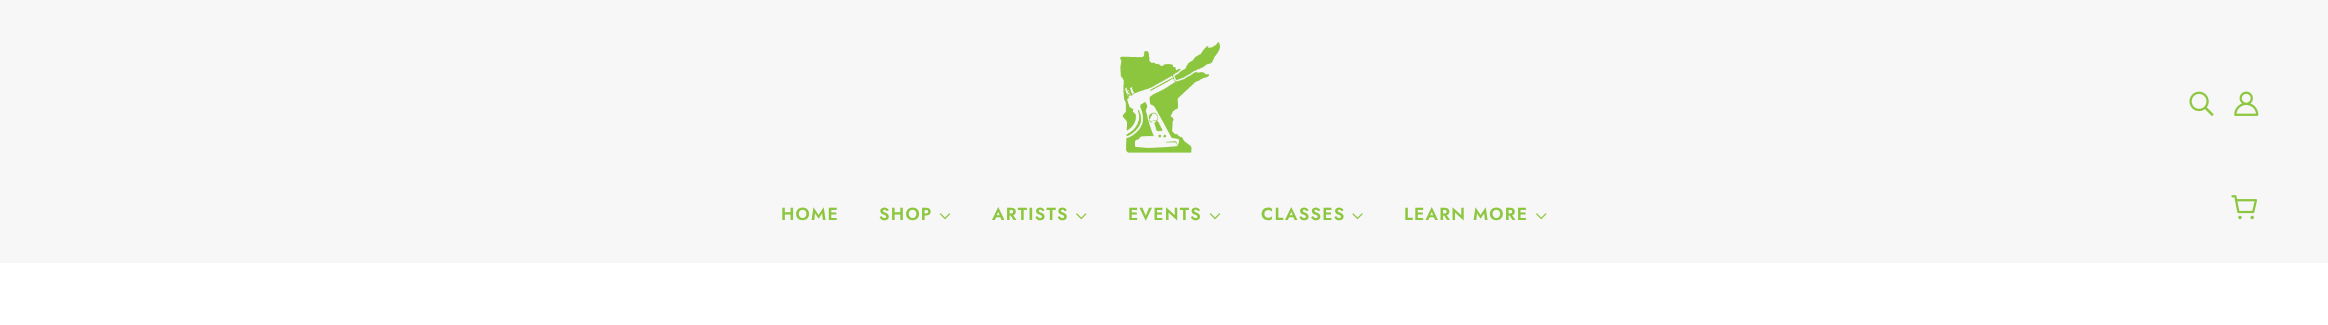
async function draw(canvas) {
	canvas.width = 2328;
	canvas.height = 325;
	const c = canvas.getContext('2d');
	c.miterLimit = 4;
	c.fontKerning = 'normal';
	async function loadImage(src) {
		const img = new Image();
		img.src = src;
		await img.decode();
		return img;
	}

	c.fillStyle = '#fff';
	c.fillRect(0, 0, 2328, 325);
	c.fillStyle = '#f7f7f7';
	c.fillRect(0, 0, 2328, 263);
	c.drawImage(await loadImage('img1.png'), 1120, 42, 100, 111);
	c.drawImage(await loadImage('img2.png'), 2189, 91, 25, 25);
	c.drawImage(await loadImage('img3.png'), 2234, 91, 25, 25);
	c.letterSpacing = '1.25px';
	c.font = '600 17.5px Jost';
	c.fillStyle = '#8dc63f';
	c.fillText('HOME', 781, 220);
	c.fillText('SHOP', 879, 220);
	c.drawImage(await loadImage('img4.png'), 939, 213, 12, 7);
	c.fillText('ARTISTS', 992, 220);
	c.drawImage(await loadImage('img5.png'), 1076, 213, 11, 7);
	c.fillText('EVENTS', 1128, 220);
	c.drawImage(await loadImage('img4.png'), 1209, 213, 12, 7);
	c.fillText('CLASSES', 1261, 220);
	c.drawImage(await loadImage('img6.png'), 1352, 213, 11, 7);
	c.fillText('LEARN MORE', 1404, 220);
	c.drawImage(await loadImage('img5.png'), 1536, 213, 11, 7);
	c.drawImage(await loadImage('img7.png'), 2231, 195, 27, 25);
}

draw(document.querySelector('canvas'));
